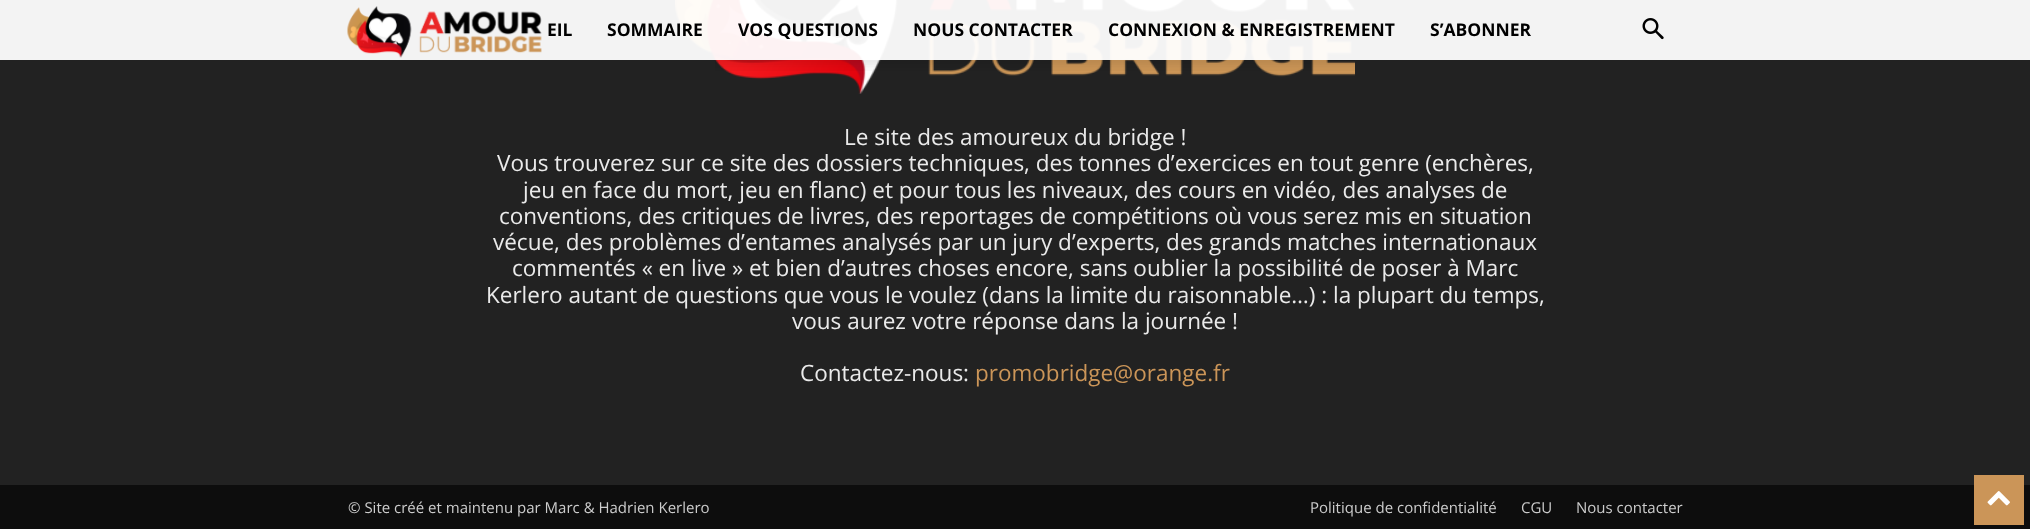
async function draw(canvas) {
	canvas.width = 2030;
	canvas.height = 529;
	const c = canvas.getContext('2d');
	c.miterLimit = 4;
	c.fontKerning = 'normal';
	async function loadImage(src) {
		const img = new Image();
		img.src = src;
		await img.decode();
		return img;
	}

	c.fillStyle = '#0d0d0d';
	c.fillRect(0, 0, 2030, 529);
	c.fillStyle = '#222';
	c.fillRect(0, 0, 2030, 485);
	c.drawImage(await loadImage('img4.png'), 675, 0, 680, 94);
	c.fillStyle = '#fffffff2';
	c.fillRect(0, 0, 2030, 60);
	c.drawImage(await loadImage('img1.png'), 347, 6, 195, 52);
	c.font = 'bold 17.5px Open Sans';
	c.fillStyle = '#000';
	for (const [text, x, y] of [
		['EIL', 547, 36],
		['SOMMAIRE', 607, 36],
		['VOS QUESTIONS', 738, 36],
		['NOUS CONTACTER', 913, 36],
		['CONNEXION & ENREGISTREMENT', 1108, 36],
		['S’ABONNER', 1430, 36],
	]) {
		c.fillText(text, x, y);
	}
	c.drawImage(await loadImage('img2.png'), 1642, 18, 22, 22);
	c.drawImage(await loadImage('img3.png'), 715, 60, 640, 11);
	c.font = '22.5px Open Sans';
	c.fillStyle = '#eaeaea';
	for (const [text, x, y] of [
		['Le site des amoureux du bridge !', 844, 145],
		['Vous trouverez sur ce site des dossiers techniques, des tonnes d’exercices en tout genre (enchères,', 497, 171],
		['jeu en face du mort, jeu en flanc) et pour tous les niveaux, des cours en vidéo, des analyses de', 523, 198],
		['conventions, des critiques de livres, des reportages de compétitions où vous serez mis en situation', 499, 224],
		['vécue, des problèmes d’entames analysés par un jury d’experts, des grands matches internationaux', 493, 250],
		['commentés « en live » et bien d’autres choses encore, sans oublier la possibilité de poser à Marc', 512, 276],
		['Kerlero autant de questions que vous le voulez (dans la limite du raisonnable…) : la plupart du temps,', 486, 303],
		['vous aurez votre réponse dans la journée !', 792, 329],
		['Contactez-nous:', 800, 381],
	]) {
		c.fillText(text, x, y);
	}
	c.fillStyle = '#cb9558';
	c.fillText('promobridge@orange.fr', 975, 381);
	c.font = '15px Open Sans';
	c.fillStyle = '#ccc';
	for (const [text, x, y] of [
		['© Site créé et maintenu par Marc & Hadrien Kerlero', 348, 513],
		['Politique de confidentialité', 1310, 513],
		['CGU', 1521, 513],
		['Nous contacter', 1576, 513],
	]) {
		c.fillText(text, x, y);
	}
	c.fillStyle = '#cb9558';
	c.fillRect(1974, 475, 50, 50);
	c.drawImage(await loadImage('img5.png'), 1987, 491, 23, 15);
}

draw(document.querySelector('canvas'));
